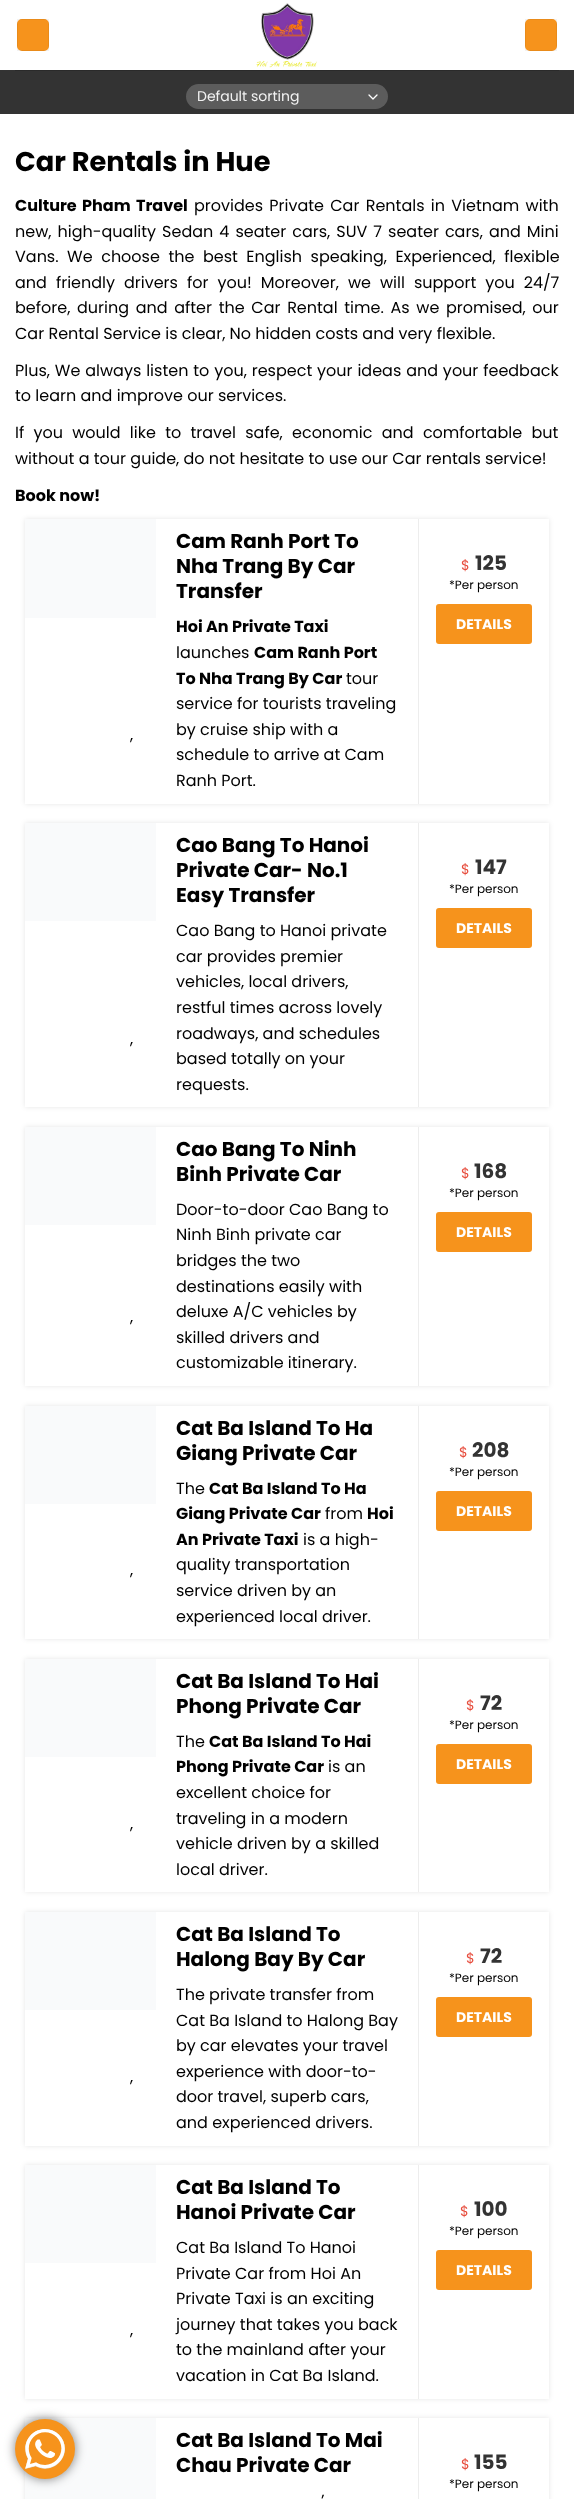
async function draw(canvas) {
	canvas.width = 574;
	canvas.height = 2499;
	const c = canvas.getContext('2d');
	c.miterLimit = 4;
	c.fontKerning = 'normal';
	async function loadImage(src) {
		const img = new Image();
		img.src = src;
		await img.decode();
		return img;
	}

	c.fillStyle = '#fff';
	c.fillRect(0, 0, 574, 2499);
	c.fillStyle = '#f6931c';
	c.beginPath();
	c.roundRect(17, 19, 32, 32, 5);
	c.fill();
	c.strokeStyle = '#0000000d';
	c.strokeRect(17.5, 19.5, 31, 31);
	c.drawImage(await loadImage('img1.png'), 256, 3, 61, 65);
	c.beginPath();
	c.roundRect(525, 19, 32, 32, 5);
	c.fill();
	c.strokeRect(525.5, 19.5, 31, 31);
	c.fillStyle = '#333';
	c.fillRect(0, 70, 574, 44);
	c.fillStyle = '#2a2a2a';
	c.fillRect(15, 70, 544, 1);
	c.drawImage(await loadImage('img2.png'), 215, 2, 10, 14);
	c.fillStyle = '#5c5c5c';
	c.beginPath();
	c.roundRect(186, 84, 202, 25, 12.5);
	c.fill();
	c.beginPath();
	c.moveTo(369, 95);
	c.lineTo(373, 99);
	c.lineTo(377, 95);
	c.strokeStyle = '#fff';
	c.lineWidth = 1.3;
	c.lineCap = 'round';
	c.lineJoin = 'round';
	c.stroke();
	c.font = '14px Poppins';
	c.fillStyle = '#f1f1f1';
	c.fillText('Default sorting', 197, 101);
	c.font = 'bold 27.25px Poppins';
	c.fillStyle = '#000';
	c.fillText('Car Rentals in Hue', 15, 171);
	c.wordSpacing = '2px';
	c.font = 'bold 16px Poppins';
	c.fillText('Culture Pham Travel', 15, 211);
	c.font = '16px Poppins';
	c.fillText('provides Private Car Rentals in Vietnam with', 194, 211);
	c.wordSpacing = '1.75px';
	c.fillText('new, high-quality Sedan 4 seater cars, SUV 7 seater cars, and Mini', 15, 237);
	c.wordSpacing = '4.25px';
	c.fillText('Vans. We choose the best English speaking, Experienced, flexible', 15, 262);
	c.wordSpacing = '4.75px';
	c.fillText('and friendly drivers for you! Moreover, we will support you 24/7', 15, 288);
	c.wordSpacing = '2.4px';
	c.fillText('before, during and after the Car Rental time. As we promised, our', 15, 313);
	c.wordSpacing = '0px';
	c.fillText('Car Rental Service is clear, No hidden costs and very flexible.', 15, 339);
	c.wordSpacing = '0.6px';
	c.fillText('Plus, We always listen to you, respect your ideas and your feedback', 15, 376);
	c.wordSpacing = '0px';
	c.fillText('to learn and improve our services.', 15, 401);
	c.wordSpacing = '5px';
	c.fillText('If you would like to travel safe, economic and comfortable but', 15, 438);
	c.wordSpacing = '0px';
	c.fillText('without a tour guide, do not hesitate to use our Car rentals service!', 15, 464);
	c.font = 'bold 16px Poppins';
	c.fillText('Book now!', 15, 501);
	c.save();
	c.beginPath();
	c.moveTo(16, 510);
	c.lineTo(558, 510);
	c.lineTo(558, 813);
	c.lineTo(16, 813);
	c.closePath();
	c.moveTo(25, 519);
	c.lineTo(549, 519);
	c.lineTo(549, 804);
	c.lineTo(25, 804);
	c.closePath();
	c.clip('evenodd');
	c.fillStyle = '#0000001a';
	c.filter = 'blur(2.5px)';
	c.beginPath();
	c.rect(25, 519, 524, 285);
	c.fill();
	c.filter = 'none';
	c.restore();
	c.font = 'bold 20px Poppins';
	for (const [text, x, y] of [
		['Cam Ranh Port To', 176, 548],
		['Nha Trang By Car', 176, 573],
		['Transfer', 176, 598],
	]) {
		c.fillText(text, x, y);
	}
	c.font = 'bold 16px Poppins';
	c.fillText('Hoi An Private Taxi', 176, 632);
	c.font = '16px Poppins';
	c.fillText('launches', 176, 658);
	c.font = 'bold 16px Poppins';
	c.fillText('Cam Ranh Port', 254, 658);
	c.fillText('To Nha Trang By Car', 176, 684);
	c.font = '16px Poppins';
	for (const [text, x, y] of [
		['tour', 346, 684],
		['service for tourists traveling', 176, 709],
		['by cruise ship with a', 176, 735],
		['schedule to arrive at Cam', 176, 760],
		['Ranh Port.', 176, 786],
	]) {
		c.fillText(text, x, y);
	}
	c.fillStyle = '#ededed';
	c.fillRect(418, 519, 1, 285);
	c.font = '14px Poppins';
	c.fillStyle = '#e74c3c';
	c.fillText('$', 461, 570);
	c.font = 'bold 20px Poppins';
	c.fillStyle = '#333';
	c.fillText('125', 475, 570);
	c.font = '12px Poppins';
	c.fillStyle = '#000';
	c.fillText('*Per person', 449, 589);
	c.fillStyle = '#f6931c';
	c.beginPath();
	c.roundRect(436, 604, 96, 40, 3);
	c.fill();
	c.font = 'bold 14px Poppins';
	c.fillStyle = '#fff';
	c.fillText('DETAILS', 456, 629);
	c.fillStyle = '#f9fafb';
	c.fillRect(25, 519, 131, 99);
	c.font = '16px Poppins';
	c.fillStyle = '#000';
	c.fillText(',', 130, 740);
	c.save();
	c.beginPath();
	c.moveTo(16, 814);
	c.lineTo(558, 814);
	c.lineTo(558, 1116);
	c.lineTo(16, 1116);
	c.closePath();
	c.moveTo(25, 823);
	c.lineTo(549, 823);
	c.lineTo(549, 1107);
	c.lineTo(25, 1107);
	c.closePath();
	c.clip('evenodd');
	c.fillStyle = '#0000001a';
	c.filter = 'blur(2.5px)';
	c.beginPath();
	c.rect(25, 823, 524, 284);
	c.fill();
	c.filter = 'none';
	c.restore();
	c.font = 'bold 20px Poppins';
	for (const [text, x, y] of [
		['Cao Bang To Hanoi', 176, 852],
		['Private Car- No.1', 176, 877],
		['Easy Transfer', 176, 902],
	]) {
		c.fillText(text, x, y);
	}
	c.font = '16px Poppins';
	for (const [text, x, y] of [
		['Cao Bang to Hanoi private', 176, 936],
		['car provides premier', 176, 962],
		['vehicles, local drivers,', 176, 987],
		['restful times across lovely', 176, 1013],
		['roadways, and schedules', 176, 1039],
		['based totally on your', 176, 1064],
		['requests.', 176, 1090],
	]) {
		c.fillText(text, x, y);
	}
	c.fillStyle = '#ededed';
	c.fillRect(418, 823, 1, 284);
	c.font = '14px Poppins';
	c.fillStyle = '#e74c3c';
	c.fillText('$', 461, 874);
	c.font = 'bold 20px Poppins';
	c.fillStyle = '#333';
	c.fillText('147', 475, 874);
	c.font = '12px Poppins';
	c.fillStyle = '#000';
	c.fillText('*Per person', 449, 893);
	c.fillStyle = '#f6931c';
	c.beginPath();
	c.roundRect(436, 908, 96, 40, 3);
	c.fill();
	c.font = 'bold 14px Poppins';
	c.fillStyle = '#fff';
	c.fillText('DETAILS', 456, 933);
	c.fillStyle = '#f9fafb';
	c.fillRect(25, 823, 131, 98);
	c.font = '16px Poppins';
	c.fillStyle = '#000';
	c.fillText(',', 130, 1044);
	c.save();
	c.beginPath();
	c.moveTo(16, 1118);
	c.lineTo(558, 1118);
	c.lineTo(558, 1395);
	c.lineTo(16, 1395);
	c.closePath();
	c.moveTo(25, 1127);
	c.lineTo(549, 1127);
	c.lineTo(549, 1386);
	c.lineTo(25, 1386);
	c.closePath();
	c.clip('evenodd');
	c.fillStyle = '#0000001a';
	c.filter = 'blur(2.5px)';
	c.beginPath();
	c.rect(25, 1127, 524, 259);
	c.fill();
	c.filter = 'none';
	c.restore();
	c.font = 'bold 20px Poppins';
	c.fillText('Cao Bang To Ninh', 176, 1156);
	c.fillText('Binh Private Car', 176, 1181);
	c.font = '16px Poppins';
	for (const [text, x, y] of [
		['Door-to-door Cao Bang to', 176, 1215],
		['Ninh Binh private car', 176, 1240],
		['bridges the two', 176, 1266],
		['destinations easily with', 176, 1292],
		['deluxe A/C vehicles by', 176, 1317],
		['skilled drivers and', 176, 1343],
		['customizable itinerary.', 176, 1368],
	]) {
		c.fillText(text, x, y);
	}
	c.fillStyle = '#ededed';
	c.fillRect(418, 1127, 1, 259);
	c.font = '14px Poppins';
	c.fillStyle = '#e74c3c';
	c.fillText('$', 461, 1178);
	c.font = 'bold 20px Poppins';
	c.fillStyle = '#333';
	c.fillText('168', 474, 1178);
	c.font = '12px Poppins';
	c.fillStyle = '#000';
	c.fillText('*Per person', 449, 1197);
	c.fillStyle = '#f6931c';
	c.beginPath();
	c.roundRect(436, 1212, 96, 40, 3);
	c.fill();
	c.font = 'bold 14px Poppins';
	c.fillStyle = '#fff';
	c.fillText('DETAILS', 456, 1237);
	c.fillStyle = '#f9fafb';
	c.fillRect(25, 1127, 131, 98);
	c.font = '16px Poppins';
	c.fillStyle = '#000';
	c.fillText(',', 130, 1322);
	c.save();
	c.beginPath();
	c.moveTo(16, 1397);
	c.lineTo(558, 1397);
	c.lineTo(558, 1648);
	c.lineTo(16, 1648);
	c.closePath();
	c.moveTo(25, 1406);
	c.lineTo(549, 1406);
	c.lineTo(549, 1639);
	c.lineTo(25, 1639);
	c.closePath();
	c.clip('evenodd');
	c.fillStyle = '#0000001a';
	c.filter = 'blur(2.5px)';
	c.beginPath();
	c.rect(25, 1406, 524, 233);
	c.fill();
	c.filter = 'none';
	c.restore();
	c.font = 'bold 20px Poppins';
	c.fillText('Cat Ba Island To Ha', 176, 1435);
	c.fillText('Giang Private Car', 176, 1460);
	c.font = '16px Poppins';
	c.fillText('The', 176, 1494);
	c.font = 'bold 16px Poppins';
	c.fillText('Cat Ba Island To Ha', 209, 1494);
	c.fillText('Giang Private Car', 176, 1519);
	c.font = '16px Poppins';
	c.fillText('from', 325, 1519);
	c.font = 'bold 16px Poppins';
	c.fillText('Hoi', 367, 1519);
	c.fillText('An Private Taxi', 176, 1545);
	c.font = '16px Poppins';
	for (const [text, x, y] of [
		['is a high-', 303, 1545],
		['quality transportation', 176, 1570],
		['service driven by an', 176, 1596],
		['experienced local driver.', 176, 1622],
	]) {
		c.fillText(text, x, y);
	}
	c.fillStyle = '#ededed';
	c.fillRect(418, 1406, 1, 233);
	c.font = '14px Poppins';
	c.fillStyle = '#e74c3c';
	c.fillText('$', 459, 1457);
	c.font = 'bold 20px Poppins';
	c.fillStyle = '#333';
	c.fillText('208', 472, 1457);
	c.font = '12px Poppins';
	c.fillStyle = '#000';
	c.fillText('*Per person', 449, 1476);
	c.fillStyle = '#f6931c';
	c.beginPath();
	c.roundRect(436, 1491, 96, 40, 3);
	c.fill();
	c.font = 'bold 14px Poppins';
	c.fillStyle = '#fff';
	c.fillText('DETAILS', 456, 1516);
	c.fillStyle = '#f9fafb';
	c.fillRect(25, 1406, 131, 98);
	c.font = '16px Poppins';
	c.fillStyle = '#000';
	c.fillText(',', 130, 1575);
	c.save();
	c.beginPath();
	c.moveTo(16, 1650);
	c.lineTo(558, 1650);
	c.lineTo(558, 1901);
	c.lineTo(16, 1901);
	c.closePath();
	c.moveTo(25, 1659);
	c.lineTo(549, 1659);
	c.lineTo(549, 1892);
	c.lineTo(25, 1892);
	c.closePath();
	c.clip('evenodd');
	c.fillStyle = '#0000001a';
	c.filter = 'blur(2.5px)';
	c.beginPath();
	c.rect(25, 1659, 524, 233);
	c.fill();
	c.filter = 'none';
	c.restore();
	c.font = 'bold 20px Poppins';
	c.fillText('Cat Ba Island To Hai', 176, 1688);
	c.fillText('Phong Private Car', 176, 1713);
	c.font = '16px Poppins';
	c.fillText('The', 176, 1747);
	c.font = 'bold 16px Poppins';
	c.fillText('Cat Ba Island To Hai', 209, 1747);
	c.fillText('Phong Private Car', 176, 1772);
	c.font = '16px Poppins';
	for (const [text, x, y] of [
		['is an', 328, 1772],
		['excellent choice for', 176, 1798],
		['traveling in a modern', 176, 1824],
		['vehicle driven by a skilled', 176, 1849],
		['local driver.', 176, 1875],
	]) {
		c.fillText(text, x, y);
	}
	c.fillStyle = '#ededed';
	c.fillRect(418, 1659, 1, 233);
	c.font = '14px Poppins';
	c.fillStyle = '#e74c3c';
	c.fillText('$', 466, 1710);
	c.font = 'bold 20px Poppins';
	c.fillStyle = '#333';
	c.fillText('72', 480, 1710);
	c.font = '12px Poppins';
	c.fillStyle = '#000';
	c.fillText('*Per person', 449, 1729);
	c.fillStyle = '#f6931c';
	c.beginPath();
	c.roundRect(436, 1744, 96, 40, 3);
	c.fill();
	c.font = 'bold 14px Poppins';
	c.fillStyle = '#fff';
	c.fillText('DETAILS', 456, 1769);
	c.fillStyle = '#f9fafb';
	c.fillRect(25, 1659, 131, 98);
	c.font = '16px Poppins';
	c.fillStyle = '#000';
	c.fillText(',', 130, 1829);
	c.save();
	c.beginPath();
	c.moveTo(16, 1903);
	c.lineTo(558, 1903);
	c.lineTo(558, 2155);
	c.lineTo(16, 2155);
	c.closePath();
	c.moveTo(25, 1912);
	c.lineTo(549, 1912);
	c.lineTo(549, 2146);
	c.lineTo(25, 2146);
	c.closePath();
	c.clip('evenodd');
	c.fillStyle = '#0000001a';
	c.filter = 'blur(2.5px)';
	c.beginPath();
	c.rect(25, 1912, 524, 234);
	c.fill();
	c.filter = 'none';
	c.restore();
	c.font = 'bold 20px Poppins';
	c.fillText('Cat Ba Island To', 176, 1941);
	c.fillText('Halong Bay By Car', 176, 1966);
	c.font = '16px Poppins';
	for (const [text, x, y] of [
		['The private transfer from', 176, 2000],
		['Cat Ba Island to Halong Bay', 176, 2026],
		['by car elevates your travel', 176, 2051],
		['experience with door-to-', 176, 2077],
		['door travel, superb cars,', 176, 2102],
		['and experienced drivers.', 176, 2128],
	]) {
		c.fillText(text, x, y);
	}
	c.fillStyle = '#ededed';
	c.fillRect(418, 1912, 1, 234);
	c.font = '14px Poppins';
	c.fillStyle = '#e74c3c';
	c.fillText('$', 466, 1963);
	c.font = 'bold 20px Poppins';
	c.fillStyle = '#333';
	c.fillText('72', 480, 1963);
	c.font = '12px Poppins';
	c.fillStyle = '#000';
	c.fillText('*Per person', 449, 1982);
	c.fillStyle = '#f6931c';
	c.beginPath();
	c.roundRect(436, 1997, 96, 40, 3);
	c.fill();
	c.font = 'bold 14px Poppins';
	c.fillStyle = '#fff';
	c.fillText('DETAILS', 456, 2022);
	c.fillStyle = '#f9fafb';
	c.fillRect(25, 1912, 131, 98);
	c.font = '16px Poppins';
	c.fillStyle = '#000';
	c.fillText(',', 130, 2082);
	c.save();
	c.beginPath();
	c.moveTo(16, 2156);
	c.lineTo(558, 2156);
	c.lineTo(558, 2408);
	c.lineTo(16, 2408);
	c.closePath();
	c.moveTo(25, 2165);
	c.lineTo(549, 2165);
	c.lineTo(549, 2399);
	c.lineTo(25, 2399);
	c.closePath();
	c.clip('evenodd');
	c.fillStyle = '#0000001a';
	c.filter = 'blur(2.5px)';
	c.beginPath();
	c.rect(25, 2165, 524, 234);
	c.fill();
	c.filter = 'none';
	c.restore();
	c.font = 'bold 20px Poppins';
	c.fillText('Cat Ba Island To', 176, 2194);
	c.fillText('Hanoi Private Car', 176, 2219);
	c.font = '16px Poppins';
	for (const [text, x, y] of [
		['Cat Ba Island To Hanoi', 176, 2253],
		['Private Car from Hoi An', 176, 2279],
		['Private Taxi is an exciting', 176, 2304],
		['journey that takes you back', 176, 2330],
		['to the mainland after your', 176, 2355],
		['vacation in Cat Ba Island.', 176, 2381],
	]) {
		c.fillText(text, x, y);
	}
	c.fillStyle = '#ededed';
	c.fillRect(418, 2165, 1, 234);
	c.font = '14px Poppins';
	c.fillStyle = '#e74c3c';
	c.fillText('$', 460, 2216);
	c.font = 'bold 20px Poppins';
	c.fillStyle = '#333';
	c.fillText('100', 474, 2216);
	c.font = '12px Poppins';
	c.fillStyle = '#000';
	c.fillText('*Per person', 449, 2235);
	c.fillStyle = '#f6931c';
	c.beginPath();
	c.roundRect(436, 2250, 96, 40, 3);
	c.fill();
	c.font = 'bold 14px Poppins';
	c.fillStyle = '#fff';
	c.fillText('DETAILS', 456, 2275);
	c.fillStyle = '#f9fafb';
	c.fillRect(25, 2165, 131, 98);
	c.font = '16px Poppins';
	c.fillStyle = '#000';
	c.fillText(',', 130, 2335);
	c.save();
	c.beginPath();
	c.moveTo(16, 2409);
	c.lineTo(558, 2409);
	c.lineTo(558, 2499);
	c.lineTo(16, 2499);
	c.closePath();
	c.moveTo(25, 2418);
	c.lineTo(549, 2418);
	c.lineTo(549, 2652);
	c.lineTo(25, 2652);
	c.closePath();
	c.clip('evenodd');
	c.fillStyle = '#0000001a';
	c.filter = 'blur(2.5px)';
	c.beginPath();
	c.rect(25, 2418, 524, 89);
	c.fill();
	c.filter = 'none';
	c.restore();
	c.fillStyle = '#f9fafb';
	c.fillRect(25, 2418, 131, 81);
	c.font = 'bold 20px Poppins';
	c.fillStyle = '#000';
	c.fillText('Cat Ba Island To Mai', 176, 2447);
	c.fillText('Chau Private Car', 176, 2472);
	c.font = '16px Poppins';
	c.fillText('’', 321, 2506);
	c.fillStyle = '#ededed';
	c.fillRect(418, 2418, 1, 81);
	c.font = '14px Poppins';
	c.fillStyle = '#e74c3c';
	c.fillText('$', 461, 2469);
	c.font = 'bold 20px Poppins';
	c.fillStyle = '#333';
	c.fillText('155', 474, 2469);
	c.font = '12px Poppins';
	c.fillStyle = '#000';
	c.fillText('*Per person', 449, 2488);
	c.fillStyle = '#00000080';
	c.filter = 'blur(5.5px)';
	c.beginPath();
	c.roundRect(15, 2419, 60, 60, 30);
	c.fill();
	c.filter = 'none';
	c.fillStyle = '#f6931c';
	c.beginPath();
	c.arc(45, 2449, 30, 0, 2 * Math.PI);
	c.fill();
	c.drawImage(await loadImage('img3.png'), 25, 2429, 40, 40);
}

draw(document.querySelector('canvas'));
